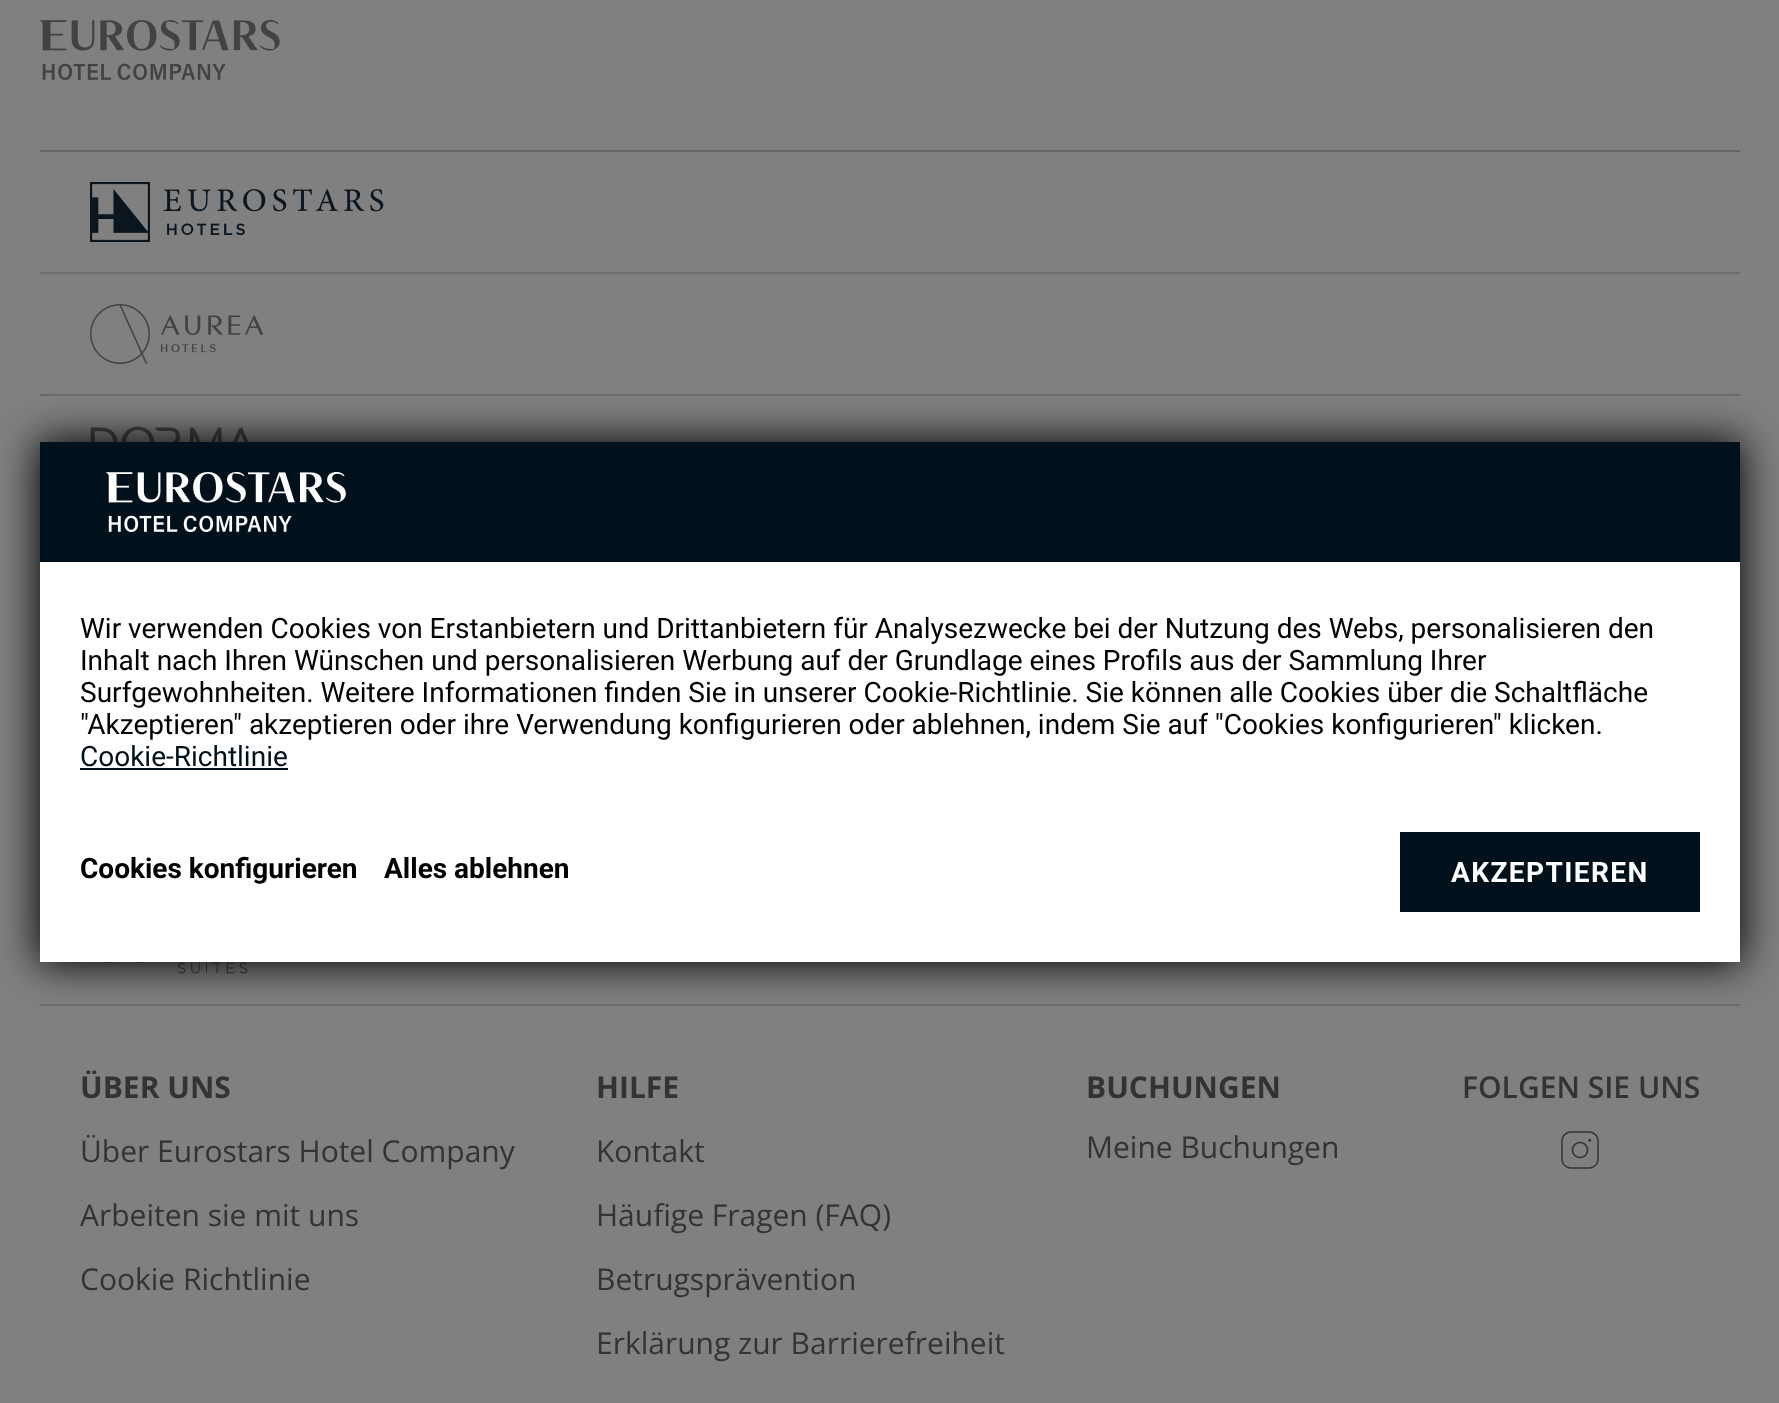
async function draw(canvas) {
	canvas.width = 1779;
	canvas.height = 1403;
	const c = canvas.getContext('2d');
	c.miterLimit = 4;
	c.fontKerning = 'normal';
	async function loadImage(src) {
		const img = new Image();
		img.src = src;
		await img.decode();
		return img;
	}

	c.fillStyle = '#808080';
	c.fillRect(0, 0, 1779, 1403);
	c.fillStyle = '#6c6c6c';
	c.fillRect(40, 394, 1700, 2);
	c.drawImage(await loadImage('img5.png'), 90, 426, 159, 16);
	c.fillRect(40, 1004, 1700, 2);
	c.drawImage(await loadImage('img6.png'), 103, 962, 145, 12);
	c.fillStyle = '#000';
	c.filter = 'blur(20px)';
	c.beginPath();
	c.rect(38, 440, 1704, 524);
	c.fill();
	c.filter = 'none';
	c.fillStyle = '#00111b';
	c.fillRect(40, 442, 1700, 120);
	c.drawImage(await loadImage('img1.png'), 106, 472, 240, 60);
	c.fillStyle = '#fff';
	c.fillRect(40, 562, 1700, 400);
	c.font = '28px Roboto';
	c.fillStyle = '#000';
	for (const [text, x, y] of [
		['Wir verwenden Cookies von Erstanbietern und Drittanbietern für Analysezwecke bei der Nutzung des Webs, personalisieren den', 80, 638],
		['Inhalt nach Ihren Wünschen und personalisieren Werbung auf der Grundlage eines Profils aus der Sammlung Ihrer', 80, 670],
		['Surfgewohnheiten. Weitere Informationen finden Sie in unserer Cookie-Richtlinie. Sie können alle Cookies über die Schaltfläche', 80, 702],
		['"Akzeptieren" akzeptieren oder ihre Verwendung konfigurieren oder ablehnen, indem Sie auf "Cookies konfigurieren" klicken.', 80, 734],
	]) {
		c.fillText(text, x, y);
	}
	c.fillStyle = '#00111b';
	c.fillText('Cookie-Richtlinie', 80, 766);
	c.fillRect(80, 768, 208, 2);
	c.font = 'bold 28px Roboto';
	c.fillStyle = '#000';
	c.fillText('Cookies konfigurieren', 80, 878);
	c.fillText('Alles ablehnen', 384, 878);
	c.fillStyle = '#00111b';
	c.fillRect(1400, 832, 300, 80);
	c.letterSpacing = '1.4px';
	c.fillStyle = '#fff';
	c.fillText('AKZEPTIEREN', 1451, 882);
	c.fillStyle = '#666';
	c.fillRect(40, 150, 1700, 2);
	c.drawImage(await loadImage('img2.png'), 40, 20, 240, 60);
	c.fillStyle = '#6c6c6c';
	c.fillRect(40, 272, 1700, 2);
	c.drawImage(await loadImage('img3.png'), 90, 182, 294, 60);
	c.drawImage(await loadImage('img4.png'), 90, 304, 174, 60);
	c.letterSpacing = '0px';
	c.font = 'bold 30px Open Sans';
	c.fillStyle = '#333';
	c.fillText('ÜBER UNS', 80, 1098);
	c.font = '30px Open Sans';
	for (const [text, x, y] of [
		['Über Eurostars Hotel Company', 80, 1162],
		['Arbeiten sie mit uns', 80, 1226],
		['Cookie Richtlinie', 80, 1290],
	]) {
		c.fillText(text, x, y);
	}
	c.font = 'bold 30px Open Sans';
	c.fillText('HILFE', 596, 1098);
	c.font = '30px Open Sans';
	for (const [text, x, y] of [
		['Kontakt', 596, 1162],
		['Häufige Fragen (FAQ)', 596, 1226],
		['Betrugsprävention', 596, 1290],
		['Erklärung zur Barrierefreiheit', 596, 1354],
	]) {
		c.fillText(text, x, y);
	}
	c.font = 'bold 30px Open Sans';
	c.fillText('BUCHUNGEN', 1086, 1098);
	c.font = '30px Open Sans';
	c.fillText('Meine Buchungen', 1086, 1158);
	c.font = '600 30px Open Sans';
	c.fillText('FOLGEN SIE UNS', 1462, 1098);
	c.drawImage(await loadImage('img7.png'), 1561, 1131, 38, 38);
}

draw(document.querySelector('canvas'));
